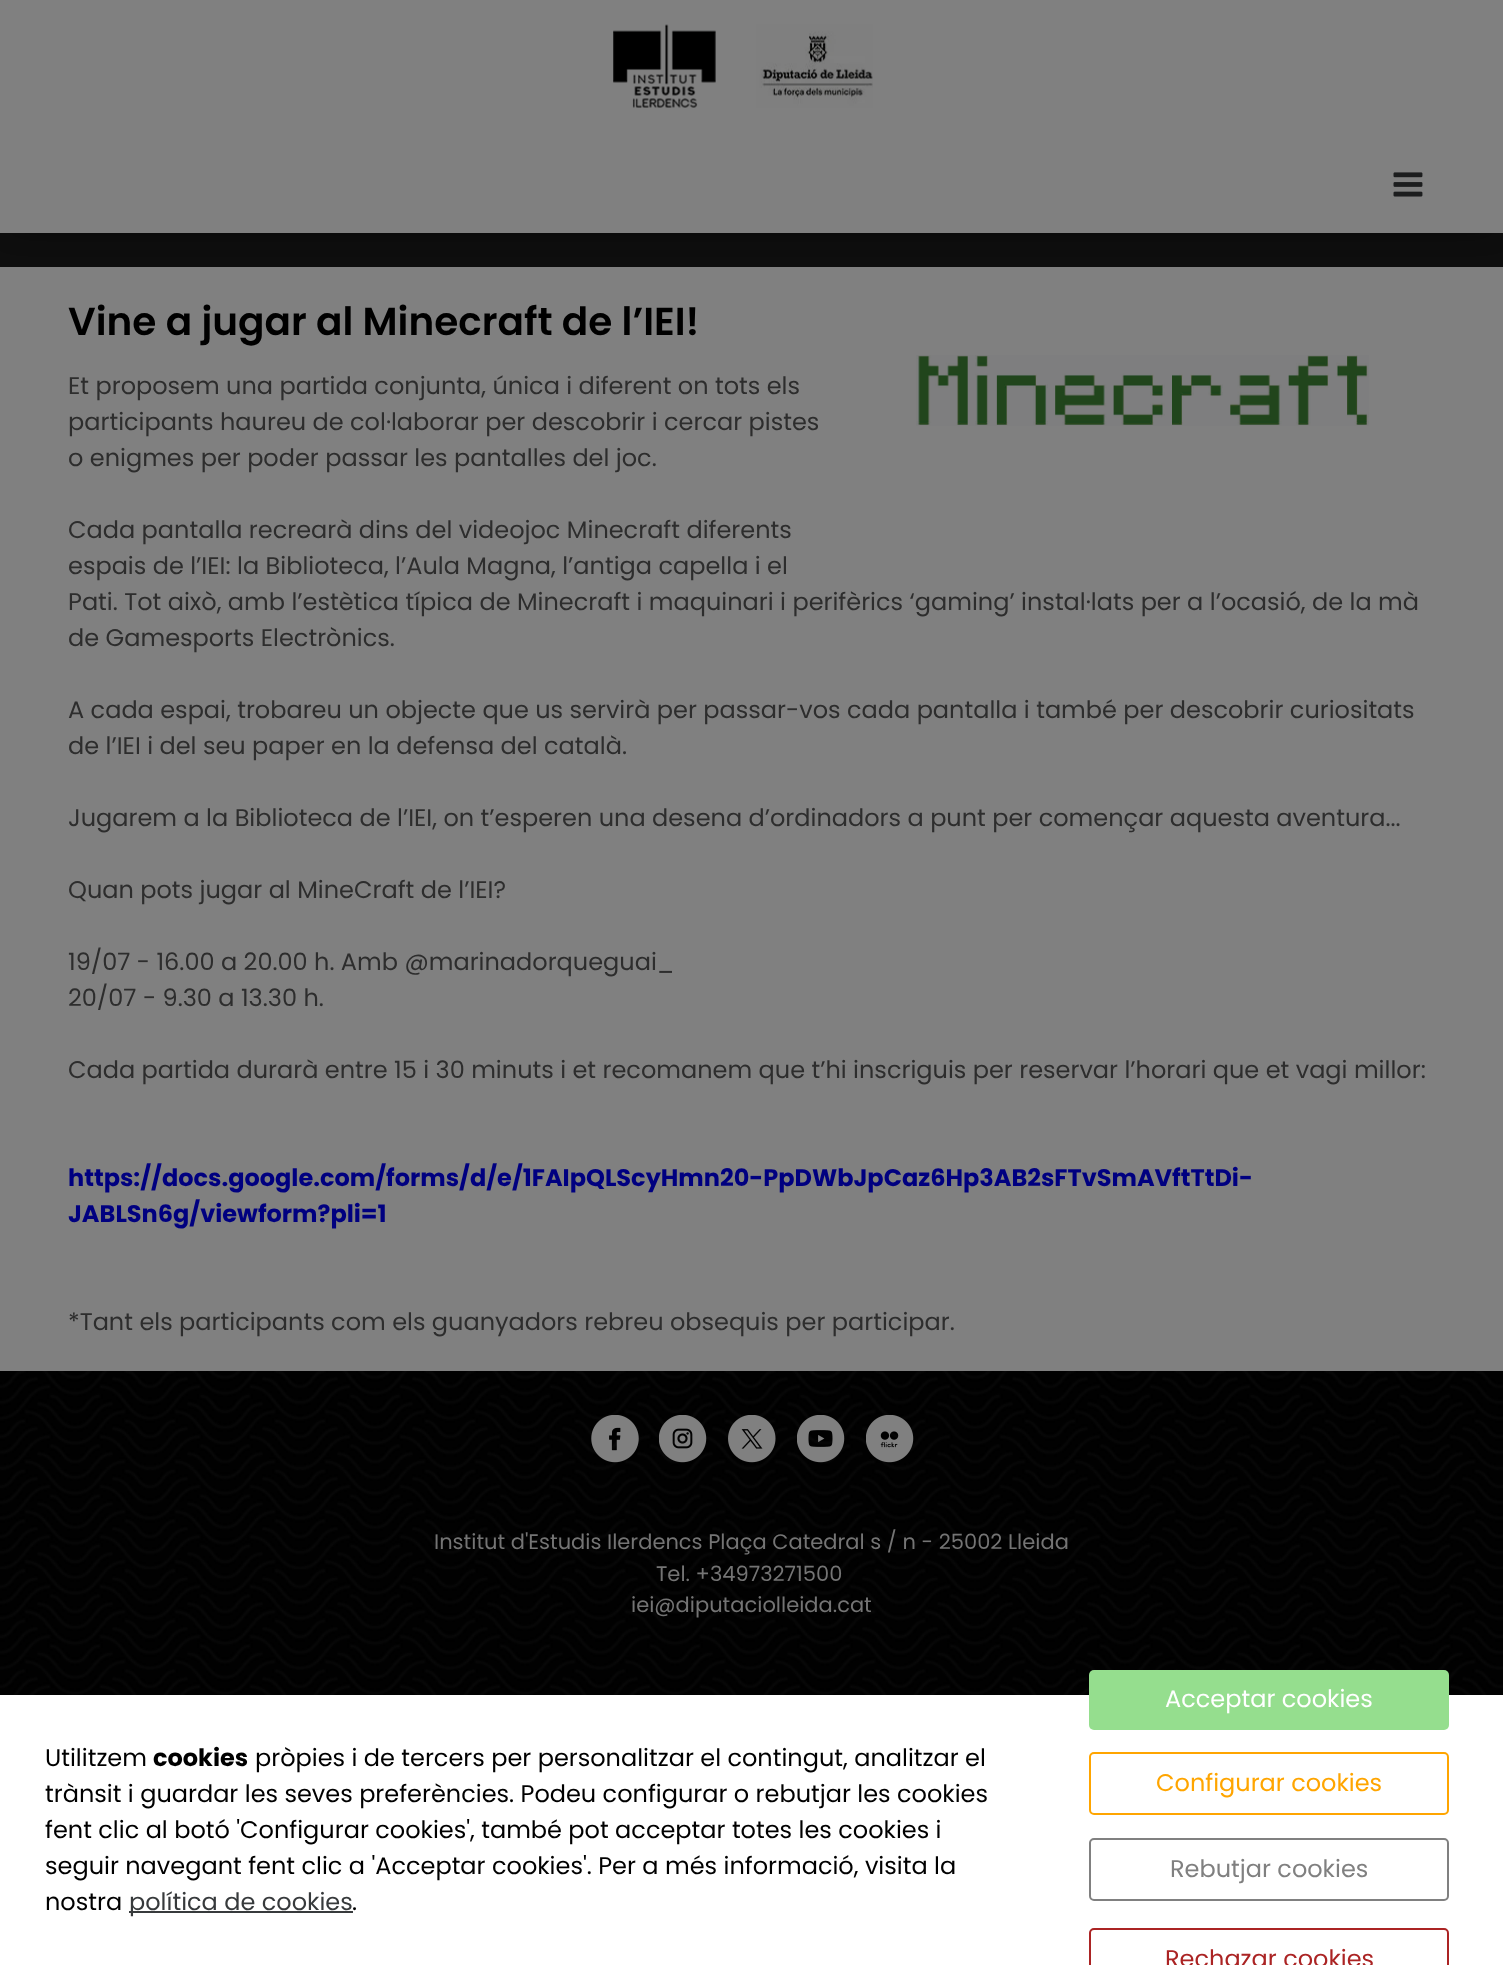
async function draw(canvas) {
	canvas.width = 1503;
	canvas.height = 1965;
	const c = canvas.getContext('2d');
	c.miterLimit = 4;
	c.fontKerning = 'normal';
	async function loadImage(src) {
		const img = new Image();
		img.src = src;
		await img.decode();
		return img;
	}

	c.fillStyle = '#808080';
	c.fillRect(0, 0, 1503, 1965);
	c.fillStyle = '#0e0e0e';
	c.fillRect(0, 233, 1503, 34);
	c.fillStyle = '#000000bf';
	c.filter = 'blur(14px)';
	c.beginPath();
	c.rect(14, 18, 1476, 206);
	c.fill();
	c.filter = 'none';
	c.fillStyle = '#808080';
	c.fillRect(0, 0, 1503, 233);
	c.drawImage(await loadImage('img1.png'), 613, 24, 260, 84);
	c.drawImage(await loadImage('img2.png'), 1393, 172, 30, 25);
	c.font = '600 39px Poppins';
	c.fillStyle = '#000';
	c.fillText('Vine a jugar al Minecraft de l’IEI!', 68, 335);
	c.drawImage(await loadImage('img3.png'), 916, 355, 453, 71);
	c.font = '24px Poppins';
	c.fillStyle = '#2d2d2d';
	for (const [text, x, y] of [
		['Et proposem una partida conjunta, única i diferent on tots els', 68, 394],
		['participants haureu de col·laborar per descobrir i cercar pistes', 68, 430],
		['o enigmes per poder passar les pantalles del joc.', 68, 466],
		['Cada pantalla recrearà dins del videojoc Minecraft diferents', 68, 538],
		['espais de l’IEI: la Biblioteca, l’Aula Magna, l’antiga capella i el', 68, 574],
		['Pati. Tot això, amb l’estètica típica de Minecraft i maquinari i perifèrics ‘gaming’ instal·lats per a l’ocasió, de la mà', 68, 610],
		['de Gamesports Electrònics.', 68, 646],
		['A cada espai, trobareu un objecte que us servirà per passar-vos cada pantalla i també per descobrir curiositats', 68, 718],
		['de l’IEI i del seu paper en la defensa del català.', 68, 754],
		['Jugarem a la Biblioteca de l’IEI, on t’esperen una desena d’ordinadors a punt per començar aquesta aventura...', 68, 826],
		['Quan pots jugar al MineCraft de l’IEI?', 68, 898],
		['19/07 - 16.00 a 20.00 h. Amb @marinadorqueguai_', 68, 970],
		['20/07 - 9.30 a 13.30 h.', 68, 1006],
		['Cada partida durarà entre 15 i 30 minuts i et recomanem que t’hi inscriguis per reservar l’horari que et vagi millor:', 68, 1078],
	]) {
		c.fillText(text, x, y);
	}
	c.font = 'bold 24px Poppins';
	c.fillStyle = '#000080';
	c.fillText('https://docs.google.com/forms/d/e/1FAIpQLScyHmn20-PpDWbJpCaz6Hp3AB2sFTvSmAVftTtDi-', 68, 1186);
	c.fillText('JABLSn6g/viewform?pli=1', 68, 1222);
	c.font = '24px Poppins';
	c.fillStyle = '#2d2d2d';
	c.fillText('*Tant els participants com els guanyadors rebreu obsequis per participar.', 68, 1330);
	c.drawImage(await loadImage('img4.png'), 0, 1371, 1503, 324);
	c.drawImage(await loadImage('img5.png'), 591, 1415, 48, 48);
	c.drawImage(await loadImage('img6.png'), 659, 1415, 48, 48);
	c.drawImage(await loadImage('img7.png'), 728, 1415, 48, 48);
	c.drawImage(await loadImage('img8.png'), 797, 1415, 48, 48);
	c.drawImage(await loadImage('img9.png'), 866, 1415, 48, 48);
	c.font = '21px Poppins';
	c.fillStyle = '#747474';
	for (const [text, x, y] of [
		['Institut d\'Estudis Ilerdencs Plaça Catedral s / n - 25002 Lleida', 434, 1549],
		['Tel. +34973271500', 656, 1581],
		['iei@diputaciolleida.cat', 631, 1612],
	]) {
		c.fillText(text, x, y);
	}
	c.fillStyle = '#fff';
	c.fillRect(0, 1695, 1503, 270);
	c.font = '24px Poppins';
	c.fillStyle = '#000';
	c.fillText('Utilitzem', 45, 1766);
	c.font = 'bold 24px Poppins';
	c.fillText('cookies', 153, 1766);
	c.font = '24px Poppins';
	for (const [text, x, y] of [
		['pròpies i de tercers per personalitzar el contingut, analitzar el', 255, 1766],
		['trànsit i guardar les seves preferències. Podeu configurar o rebutjar les cookies', 45, 1802],
		['fent clic al botó \'Configurar cookies\', també pot acceptar totes les cookies i', 45, 1838],
		['seguir navegant fent clic a \'Acceptar cookies\'. Per a més informació, visita la', 45, 1874],
		['nostra', 45, 1910],
	]) {
		c.fillText(text, x, y);
	}
	c.fillStyle = '#373a3c';
	c.fillRect(129, 1911, 224, 2);
	c.fillText('política de cookies', 129, 1910);
	c.fillStyle = '#000';
	c.fillText('.', 352, 1910);
	c.fillStyle = '#95de8e';
	c.beginPath();
	c.roundRect(1089, 1670, 360, 60, 5);
	c.fill();
	c.fillStyle = '#fff';
	c.fillText('Acceptar cookies', 1165, 1707);
	c.beginPath();
	c.roundRect(1090, 1753, 358, 61, 4);
	c.strokeStyle = '#ffa500';
	c.lineWidth = 2;
	c.stroke();
	c.fillStyle = '#ffa500';
	c.fillText('Configurar cookies', 1156, 1791);
	c.beginPath();
	c.roundRect(1090, 1839, 358, 61, 4);
	c.strokeStyle = '#808080';
	c.stroke();
	c.fillStyle = '#808080';
	c.fillText('Rebutjar cookies', 1170, 1877);
	c.beginPath();
	c.roundRect(1090, 1929, 358, 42, 4);
	c.strokeStyle = '#ab2424';
	c.stroke();
	c.fillStyle = '#ab2424';
	c.fillText('Rechazar cookies', 1165, 1967);
}

draw(document.querySelector('canvas'));
